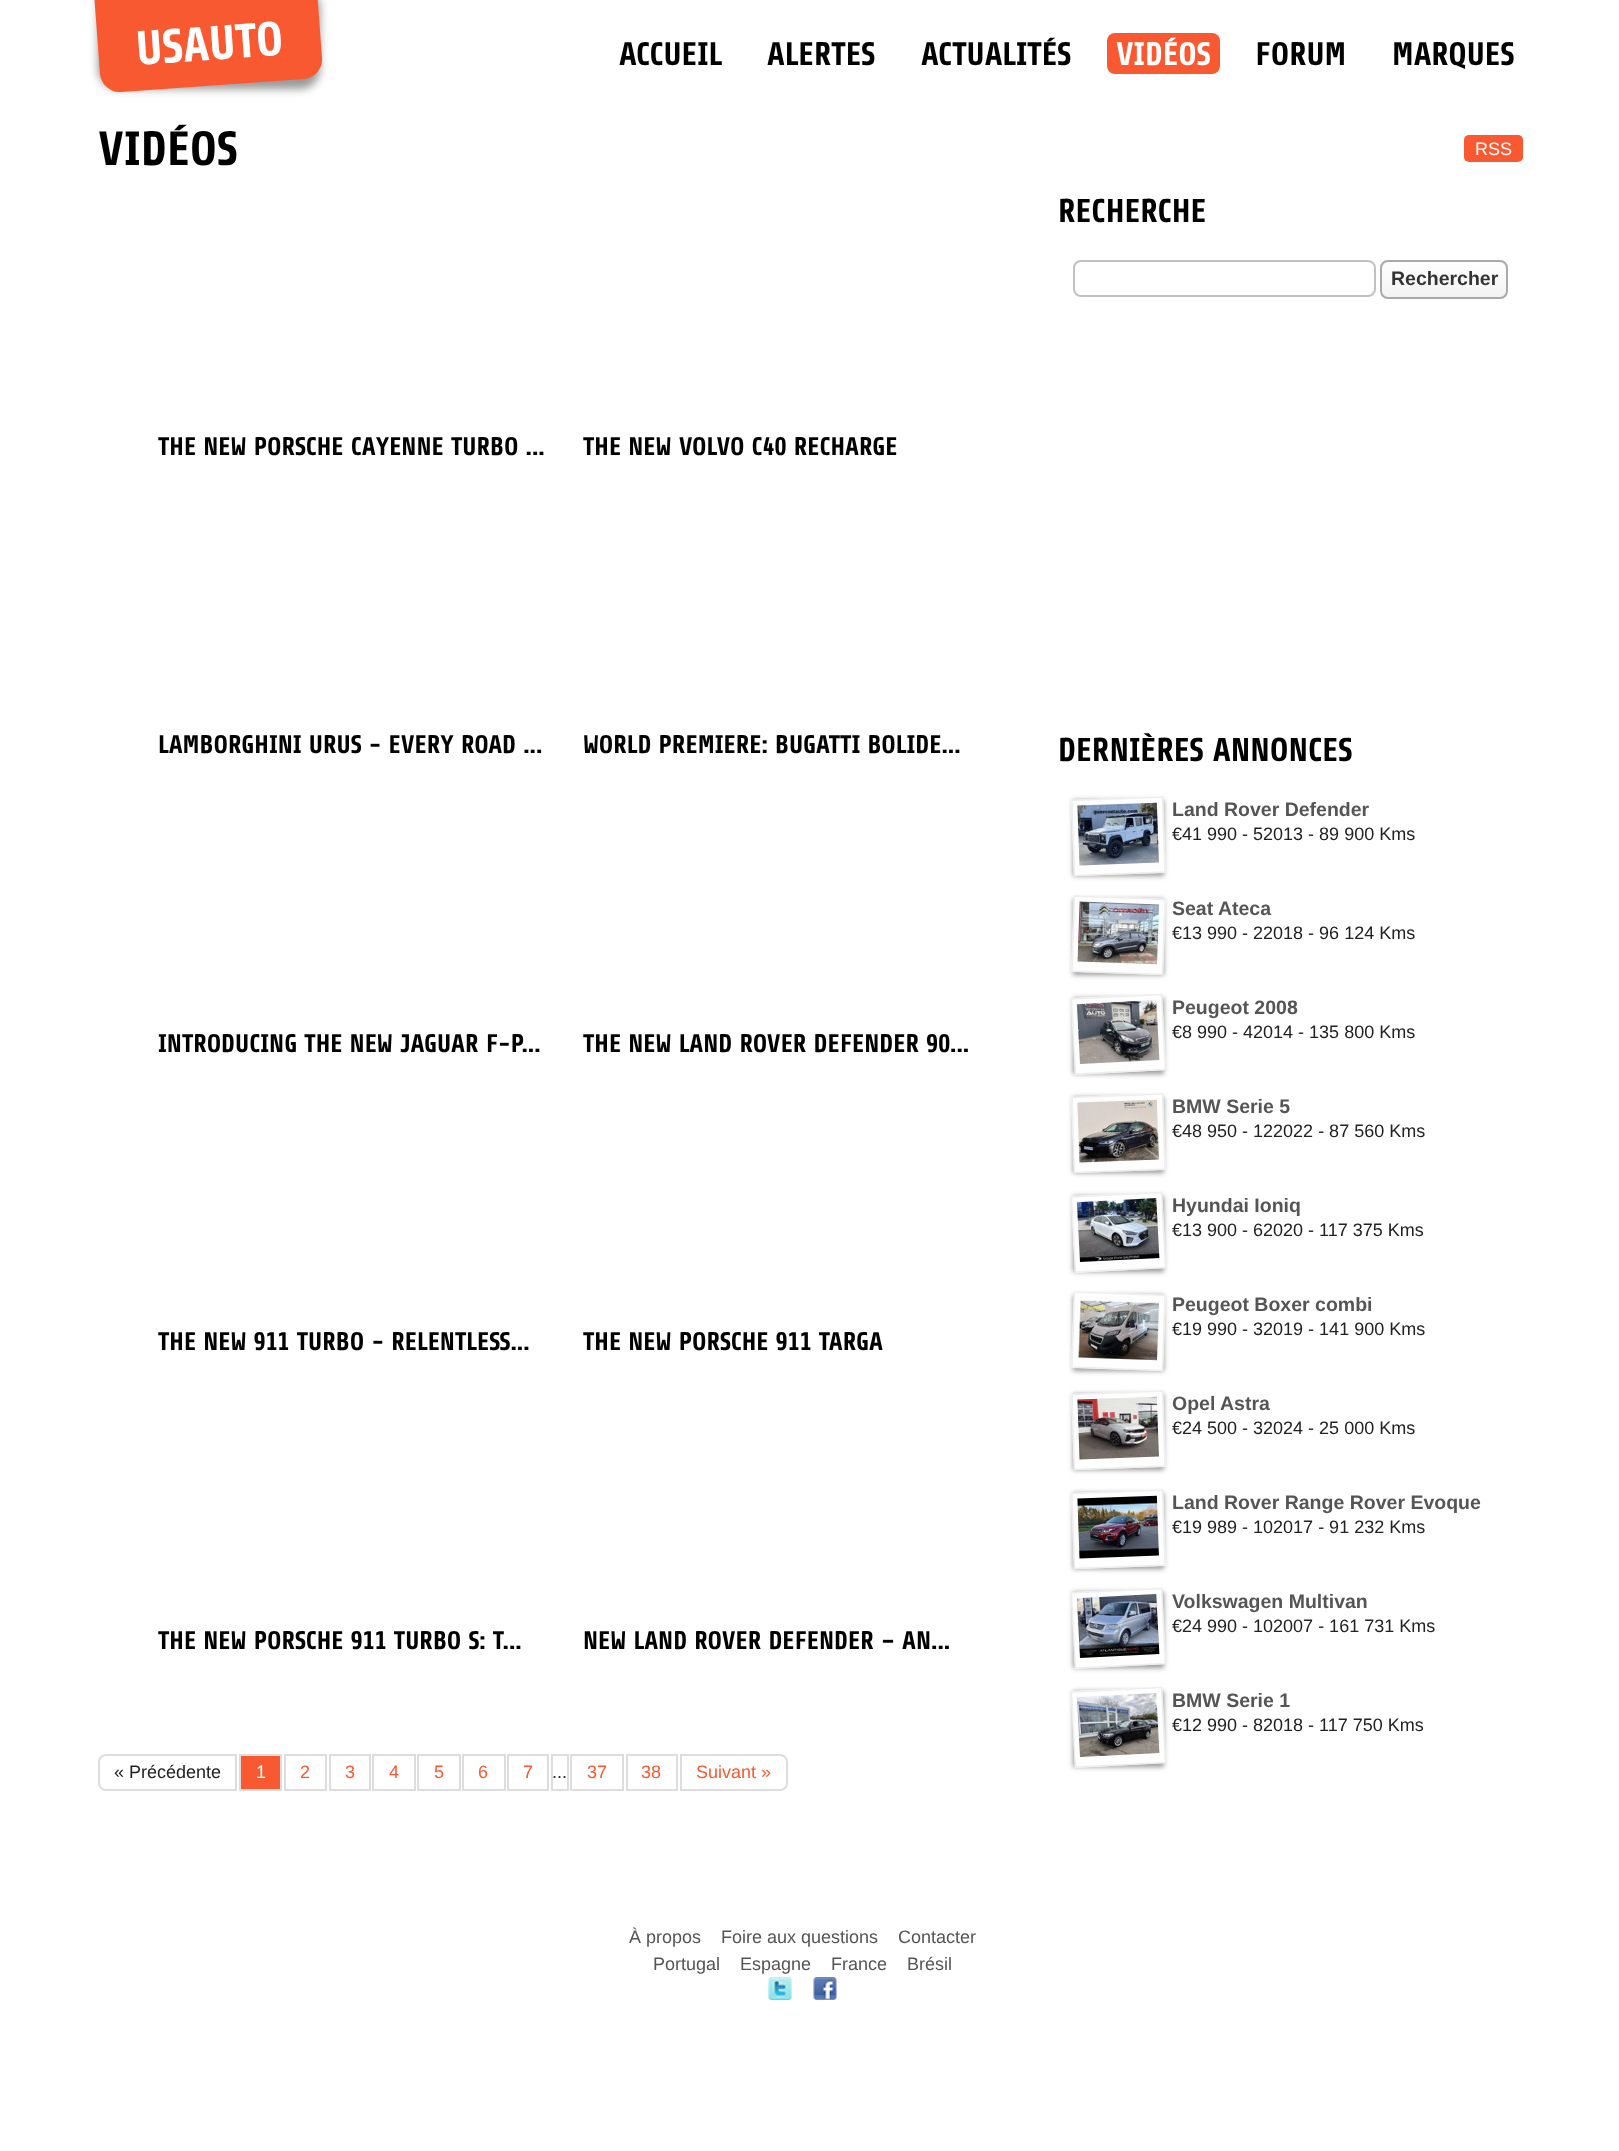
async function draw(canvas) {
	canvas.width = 1619;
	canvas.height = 2151;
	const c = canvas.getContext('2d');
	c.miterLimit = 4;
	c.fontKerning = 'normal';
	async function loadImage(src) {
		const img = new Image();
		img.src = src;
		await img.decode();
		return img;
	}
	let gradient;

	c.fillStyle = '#fff';
	c.fillRect(0, 0, 1619, 2151);
	c.fillStyle = '#00000066';
	c.filter = 'blur(4.5px)';
	c.beginPath();
	c.roundRect(98, -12, 222, 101, 20);
	c.fill();
	c.filter = 'none';
	c.fillStyle = '#f85931';
	c.beginPath();
	c.moveTo(94, -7);
	c.lineTo(316, -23);
	c.lineTo(322, 58);
	c.bezierCurveTo(323, 69, 314, 78, 304, 79);
	c.lineTo(121, 92);
	c.bezierCurveTo(110, 93, 101, 84, 100, 74);
	c.closePath();
	c.fill();
	c.font = 'bold 48px Share';
	c.fillStyle = '#fff';
	c.save();
	c.translate(137, 65);
	c.rotate(-4 * Math.PI / 180);
	c.fillText('USAUTO', 0, 0);
	c.restore();
	c.font = 'bold 32.5px Share';
	c.fillStyle = '#000';
	for (const [text, x, y] of [
		['ACCUEIL', 619, 65],
		['ALERTES', 767, 65],
		['ACTUALITÉS', 921, 65],
	]) {
		c.fillText(text, x, y);
	}
	c.fillStyle = '#f85931';
	c.beginPath();
	c.roundRect(1107, 33, 113, 41, 8);
	c.fill();
	c.fillStyle = '#fff';
	c.fillText('VIDÉOS', 1116, 65);
	c.fillStyle = '#000';
	c.fillText('FORUM', 1255, 65);
	c.fillText('MARQUES', 1392, 65);
	c.font = 'bold 48px Share';
	c.fillText('VIDÉOS', 98, 165);
	c.fillStyle = '#f85931';
	c.beginPath();
	c.roundRect(1464, 135, 59, 27, 5);
	c.fill();
	c.font = '18px Liberation Sans';
	c.fillStyle = '#fff';
	c.fillText('RSS', 1475, 155);
	c.font = 'bold 25.5px Share';
	c.fillStyle = '#000';
	for (const [text, x, y] of [
		['THE NEW PORSCHE CAYENNE TURBO ...', 158, 455],
		['THE NEW VOLVO C40 RECHARGE', 583, 455],
		['LAMBORGHINI URUS - EVERY ROAD ...', 158, 753],
		['WORLD PREMIERE: BUGATTI BOLIDE...', 583, 753],
		['INTRODUCING THE NEW JAGUAR F-P...', 158, 1052],
		['THE NEW LAND ROVER DEFENDER 90...', 583, 1052],
		['THE NEW 911 TURBO - RELENTLESS...', 158, 1350],
		['THE NEW PORSCHE 911 TARGA', 583, 1350],
		['THE NEW PORSCHE 911 TURBO S: T...', 158, 1649],
		['NEW LAND ROVER DEFENDER – AN...', 583, 1649],
	]) {
		c.fillText(text, x, y);
	}
	c.beginPath();
	c.roundRect(99, 1755, 137, 35, [7, 0, 0, 7]);
	c.strokeStyle = '#ddd';
	c.lineWidth = 2;
	c.stroke();
	c.font = '18px Liberation Sans';
	c.fillStyle = '#222';
	c.fillText('« Précédente', 114, 1778);
	c.fillStyle = '#f85931';
	c.beginPath();
	c.rect(240, 1755, 41, 35);
	c.fill();
	c.stroke();
	c.fillStyle = '#fff';
	c.fillText('1', 256, 1778);
	c.strokeRect(285, 1755, 41, 35);
	c.fillStyle = '#f85931';
	c.fillText('2', 300, 1778);
	c.strokeRect(330, 1755, 40, 35);
	c.fillText('3', 345, 1778);
	c.strokeRect(373, 1755, 42, 35);
	c.fillText('4', 389, 1778);
	c.strokeRect(418, 1755, 42, 35);
	c.fillText('5', 434, 1778);
	c.strokeRect(463, 1755, 42, 35);
	c.fillText('6', 478, 1778);
	c.strokeRect(508, 1755, 40, 35);
	c.fillText('7', 523, 1778);
	c.strokeRect(552, 1755, 16, 35);
	c.fillStyle = '#222';
	c.fillText('...', 552, 1778);
	c.strokeRect(571, 1755, 52, 35);
	c.fillStyle = '#f85931';
	c.fillText('37', 587, 1778);
	c.strokeRect(627, 1755, 50, 35);
	c.fillText('38', 641, 1778);
	c.beginPath();
	c.roundRect(681, 1755, 106, 35, [0, 7, 7, 0]);
	c.stroke();
	c.fillText('Suivant »', 696, 1778);
	c.font = 'bold 33px Share';
	c.fillStyle = '#000';
	c.fillText('RECHERCHE', 1058, 222);
	c.beginPath();
	c.roundRect(1074, 261, 301, 35, 7);
	c.strokeStyle = '#c1c1c1';
	c.stroke();
	c.save();
	c.beginPath();
	c.roundRect(1380, 260, 128, 39, 8);
	c.clip();
	gradient = c.createLinearGradient(1382, 261, 1382, 297);
	gradient.addColorStop(0, '#fff');
	gradient.addColorStop(1, '#f3f3f3');
	c.fillStyle = gradient;
	c.fillRect(1380, 261, 128, 36);
	c.restore();
	c.beginPath();
	c.roundRect(1381, 261, 126, 37, 7);
	c.strokeStyle = '#aaa';
	c.stroke();
	c.font = 'bold 19.5px Liberation Sans';
	c.fillStyle = '#333';
	c.fillText('Rechercher', 1391, 285);
	c.font = 'bold 33px Share';
	c.fillStyle = '#000';
	c.fillText('DERNIÈRES ANNONCES', 1058, 761);
	c.fillStyle = '#00000066';
	c.filter = 'blur(2.5px)';
	c.beginPath();
	c.rect(1073, 800, 91, 76);
	c.fill();
	c.filter = 'none';
	c.fillStyle = '#fefefe';
	c.beginPath();
	c.moveTo(1071, 800);
	c.lineTo(1163, 796);
	c.lineTo(1166, 873);
	c.lineTo(1074, 876);
	c.closePath();
	c.fill();
	c.beginPath();
	c.moveTo(1072, 800.5);
	c.lineTo(1162.5, 797);
	c.lineTo(1165, 872);
	c.lineTo(1074.5, 875.5);
	c.closePath();
	c.strokeStyle = '#eee';
	c.lineWidth = 1.5;
	c.stroke();
	c.drawImage(await loadImage('img1.png'), 1077, 802, 82, 64);
	c.font = 'bold 19.5px Liberation Sans';
	c.fillStyle = '#555';
	c.fillText('Land Rover Defender', 1172, 816);
	c.font = '18px Liberation Sans';
	c.fillStyle = '#222';
	c.fillText('€41 990 - 52013 - 89 900 Kms', 1172, 840);
	c.fillStyle = '#00000066';
	c.filter = 'blur(2.5px)';
	c.beginPath();
	c.rect(1073, 899, 91, 76);
	c.fill();
	c.filter = 'none';
	c.fillStyle = '#fefefe';
	c.beginPath();
	c.moveTo(1074, 895);
	c.lineTo(1166, 899);
	c.lineTo(1163, 975);
	c.lineTo(1071, 972);
	c.closePath();
	c.fill();
	c.beginPath();
	c.moveTo(1074.5, 896);
	c.lineTo(1165, 899.5);
	c.lineTo(1162.5, 974.5);
	c.lineTo(1072, 971);
	c.closePath();
	c.stroke();
	c.drawImage(await loadImage('img2.png'), 1077, 901, 83, 64);
	c.font = 'bold 19.5px Liberation Sans';
	c.fillStyle = '#555';
	c.fillText('Seat Ateca', 1172, 915);
	c.font = '18px Liberation Sans';
	c.fillStyle = '#222';
	c.fillText('€13 990 - 22018 - 96 124 Kms', 1172, 939);
	c.fillStyle = '#00000066';
	c.filter = 'blur(2.5px)';
	c.beginPath();
	c.rect(1073, 998, 91, 76);
	c.fill();
	c.filter = 'none';
	c.fillStyle = '#fefefe';
	c.beginPath();
	c.moveTo(1071, 998);
	c.lineTo(1162, 994);
	c.lineTo(1166, 1070);
	c.lineTo(1075, 1075);
	c.closePath();
	c.fill();
	c.beginPath();
	c.moveTo(1071.5, 999);
	c.lineTo(1161.5, 994.5);
	c.lineTo(1165.5, 1069.5);
	c.lineTo(1075.5, 1074);
	c.closePath();
	c.stroke();
	c.drawImage(await loadImage('img3.png'), 1076, 1000, 84, 64);
	c.font = 'bold 19.5px Liberation Sans';
	c.fillStyle = '#555';
	c.fillText('Peugeot 2008', 1172, 1014);
	c.font = '18px Liberation Sans';
	c.fillStyle = '#222';
	c.fillText('€8 990 - 42014 - 135 800 Kms', 1172, 1038);
	c.fillStyle = '#00000066';
	c.filter = 'blur(2.5px)';
	c.beginPath();
	c.rect(1073, 1097, 91, 76);
	c.fill();
	c.filter = 'none';
	c.fillStyle = '#fefefe';
	c.beginPath();
	c.moveTo(1071, 1097);
	c.lineTo(1163, 1093);
	c.lineTo(1166, 1170);
	c.lineTo(1074, 1173);
	c.closePath();
	c.fill();
	c.beginPath();
	c.moveTo(1072, 1097.5);
	c.lineTo(1162.5, 1094);
	c.lineTo(1165, 1169);
	c.lineTo(1074.5, 1172.5);
	c.closePath();
	c.stroke();
	c.drawImage(await loadImage('img4.png'), 1077, 1099, 82, 64);
	c.font = 'bold 19.5px Liberation Sans';
	c.fillStyle = '#555';
	c.fillText('BMW Serie 5', 1172, 1113);
	c.font = '18px Liberation Sans';
	c.fillStyle = '#222';
	c.fillText('€48 950 - 122022 - 87 560 Kms', 1172, 1137);
	c.fillStyle = '#00000066';
	c.filter = 'blur(2.5px)';
	c.beginPath();
	c.rect(1073, 1196, 91, 76);
	c.fill();
	c.filter = 'none';
	c.fillStyle = '#fefefe';
	c.beginPath();
	c.moveTo(1071, 1196);
	c.lineTo(1162, 1192);
	c.lineTo(1166, 1268);
	c.lineTo(1075, 1273);
	c.closePath();
	c.fill();
	c.beginPath();
	c.moveTo(1071.5, 1197);
	c.lineTo(1161.5, 1192.5);
	c.lineTo(1165.5, 1267.5);
	c.lineTo(1075.5, 1272);
	c.closePath();
	c.stroke();
	c.drawImage(await loadImage('img5.png'), 1076, 1198, 84, 64);
	c.font = 'bold 19.5px Liberation Sans';
	c.fillStyle = '#555';
	c.fillText('Hyundai Ioniq', 1172, 1212);
	c.font = '18px Liberation Sans';
	c.fillStyle = '#222';
	c.fillText('€13 900 - 62020 - 117 375 Kms', 1172, 1236);
	c.fillStyle = '#00000066';
	c.filter = 'blur(2.5px)';
	c.beginPath();
	c.rect(1073, 1295, 91, 76);
	c.fill();
	c.filter = 'none';
	c.fillStyle = '#fefefe';
	c.beginPath();
	c.moveTo(1074, 1291);
	c.lineTo(1166, 1295);
	c.lineTo(1163, 1371);
	c.lineTo(1071, 1368);
	c.closePath();
	c.fill();
	c.beginPath();
	c.moveTo(1074.5, 1292);
	c.lineTo(1165, 1295.5);
	c.lineTo(1162.5, 1370.5);
	c.lineTo(1072, 1367);
	c.closePath();
	c.stroke();
	c.drawImage(await loadImage('img6.png'), 1078, 1298, 81, 63);
	c.font = 'bold 19.5px Liberation Sans';
	c.fillStyle = '#555';
	c.fillText('Peugeot Boxer combi', 1172, 1311);
	c.font = '18px Liberation Sans';
	c.fillStyle = '#222';
	c.fillText('€19 990 - 32019 - 141 900 Kms', 1172, 1335);
	c.fillStyle = '#00000066';
	c.filter = 'blur(2.5px)';
	c.beginPath();
	c.rect(1073, 1394, 91, 76);
	c.fill();
	c.filter = 'none';
	c.fillStyle = '#fefefe';
	c.beginPath();
	c.moveTo(1071, 1394);
	c.lineTo(1163, 1390);
	c.lineTo(1166, 1467);
	c.lineTo(1074, 1470);
	c.closePath();
	c.fill();
	c.beginPath();
	c.moveTo(1072, 1394.5);
	c.lineTo(1162.5, 1391);
	c.lineTo(1165, 1466);
	c.lineTo(1074.5, 1469.5);
	c.closePath();
	c.stroke();
	c.drawImage(await loadImage('img7.png'), 1077, 1396, 82, 64);
	c.font = 'bold 19.5px Liberation Sans';
	c.fillStyle = '#555';
	c.fillText('Opel Astra', 1172, 1410);
	c.font = '18px Liberation Sans';
	c.fillStyle = '#222';
	c.fillText('€24 500 - 32024 - 25 000 Kms', 1172, 1434);
	c.fillStyle = '#00000066';
	c.filter = 'blur(2.5px)';
	c.beginPath();
	c.rect(1073, 1493, 91, 76);
	c.fill();
	c.filter = 'none';
	c.fillStyle = '#fefefe';
	c.beginPath();
	c.moveTo(1071, 1493);
	c.lineTo(1163, 1489);
	c.lineTo(1166, 1566);
	c.lineTo(1074, 1569);
	c.closePath();
	c.fill();
	c.beginPath();
	c.moveTo(1072, 1493.5);
	c.lineTo(1162.5, 1490);
	c.lineTo(1165, 1565);
	c.lineTo(1074.5, 1568.5);
	c.closePath();
	c.stroke();
	c.drawImage(await loadImage('img8.png'), 1077, 1495, 82, 64);
	c.font = 'bold 19.5px Liberation Sans';
	c.fillStyle = '#555';
	c.fillText('Land Rover Range Rover Evoque', 1172, 1509);
	c.font = '18px Liberation Sans';
	c.fillStyle = '#222';
	c.fillText('€19 989 - 102017 - 91 232 Kms', 1172, 1533);
	c.fillStyle = '#00000066';
	c.filter = 'blur(2.5px)';
	c.beginPath();
	c.rect(1073, 1592, 91, 76);
	c.fill();
	c.filter = 'none';
	c.fillStyle = '#fefefe';
	c.beginPath();
	c.moveTo(1071, 1592);
	c.lineTo(1162, 1588);
	c.lineTo(1166, 1664);
	c.lineTo(1075, 1669);
	c.closePath();
	c.fill();
	c.beginPath();
	c.moveTo(1071.5, 1593);
	c.lineTo(1161.5, 1588.5);
	c.lineTo(1165.5, 1663.5);
	c.lineTo(1075.5, 1668);
	c.closePath();
	c.stroke();
	c.drawImage(await loadImage('img9.png'), 1076, 1594, 84, 64);
	c.font = 'bold 19.5px Liberation Sans';
	c.fillStyle = '#555';
	c.fillText('Volkswagen Multivan', 1172, 1608);
	c.font = '18px Liberation Sans';
	c.fillStyle = '#222';
	c.fillText('€24 990 - 102007 - 161 731 Kms', 1172, 1632);
	c.fillStyle = '#00000066';
	c.filter = 'blur(2.5px)';
	c.beginPath();
	c.rect(1073, 1691, 91, 76);
	c.fill();
	c.filter = 'none';
	c.fillStyle = '#fefefe';
	c.beginPath();
	c.moveTo(1071, 1691);
	c.lineTo(1162, 1687);
	c.lineTo(1166, 1763);
	c.lineTo(1075, 1768);
	c.closePath();
	c.fill();
	c.beginPath();
	c.moveTo(1071.5, 1692);
	c.lineTo(1161.5, 1687.5);
	c.lineTo(1165.5, 1762.5);
	c.lineTo(1075.5, 1767);
	c.closePath();
	c.stroke();
	c.drawImage(await loadImage('img10.png'), 1077, 1693, 83, 64);
	c.font = 'bold 19.5px Liberation Sans';
	c.fillStyle = '#555';
	c.fillText('BMW Serie 1', 1172, 1707);
	c.font = '18px Liberation Sans';
	c.fillStyle = '#222';
	c.fillText('€12 990 - 82018 - 117 750 Kms', 1172, 1731);
	c.fillStyle = '#555';
	for (const [text, x, y] of [
		['À propos', 629, 1943],
		['Foire aux questions', 721, 1943],
		['Contacter', 898, 1943],
		['Portugal', 653, 1970],
		['Espagne', 740, 1970],
		['France', 831, 1970],
		['Brésil', 907, 1970],
	]) {
		c.fillText(text, x, y);
	}
	c.drawImage(await loadImage('img11.png'), 768, 1977, 24, 23);
	c.drawImage(await loadImage('img12.png'), 813, 1977, 24, 24);
}

draw(document.querySelector('canvas'));
